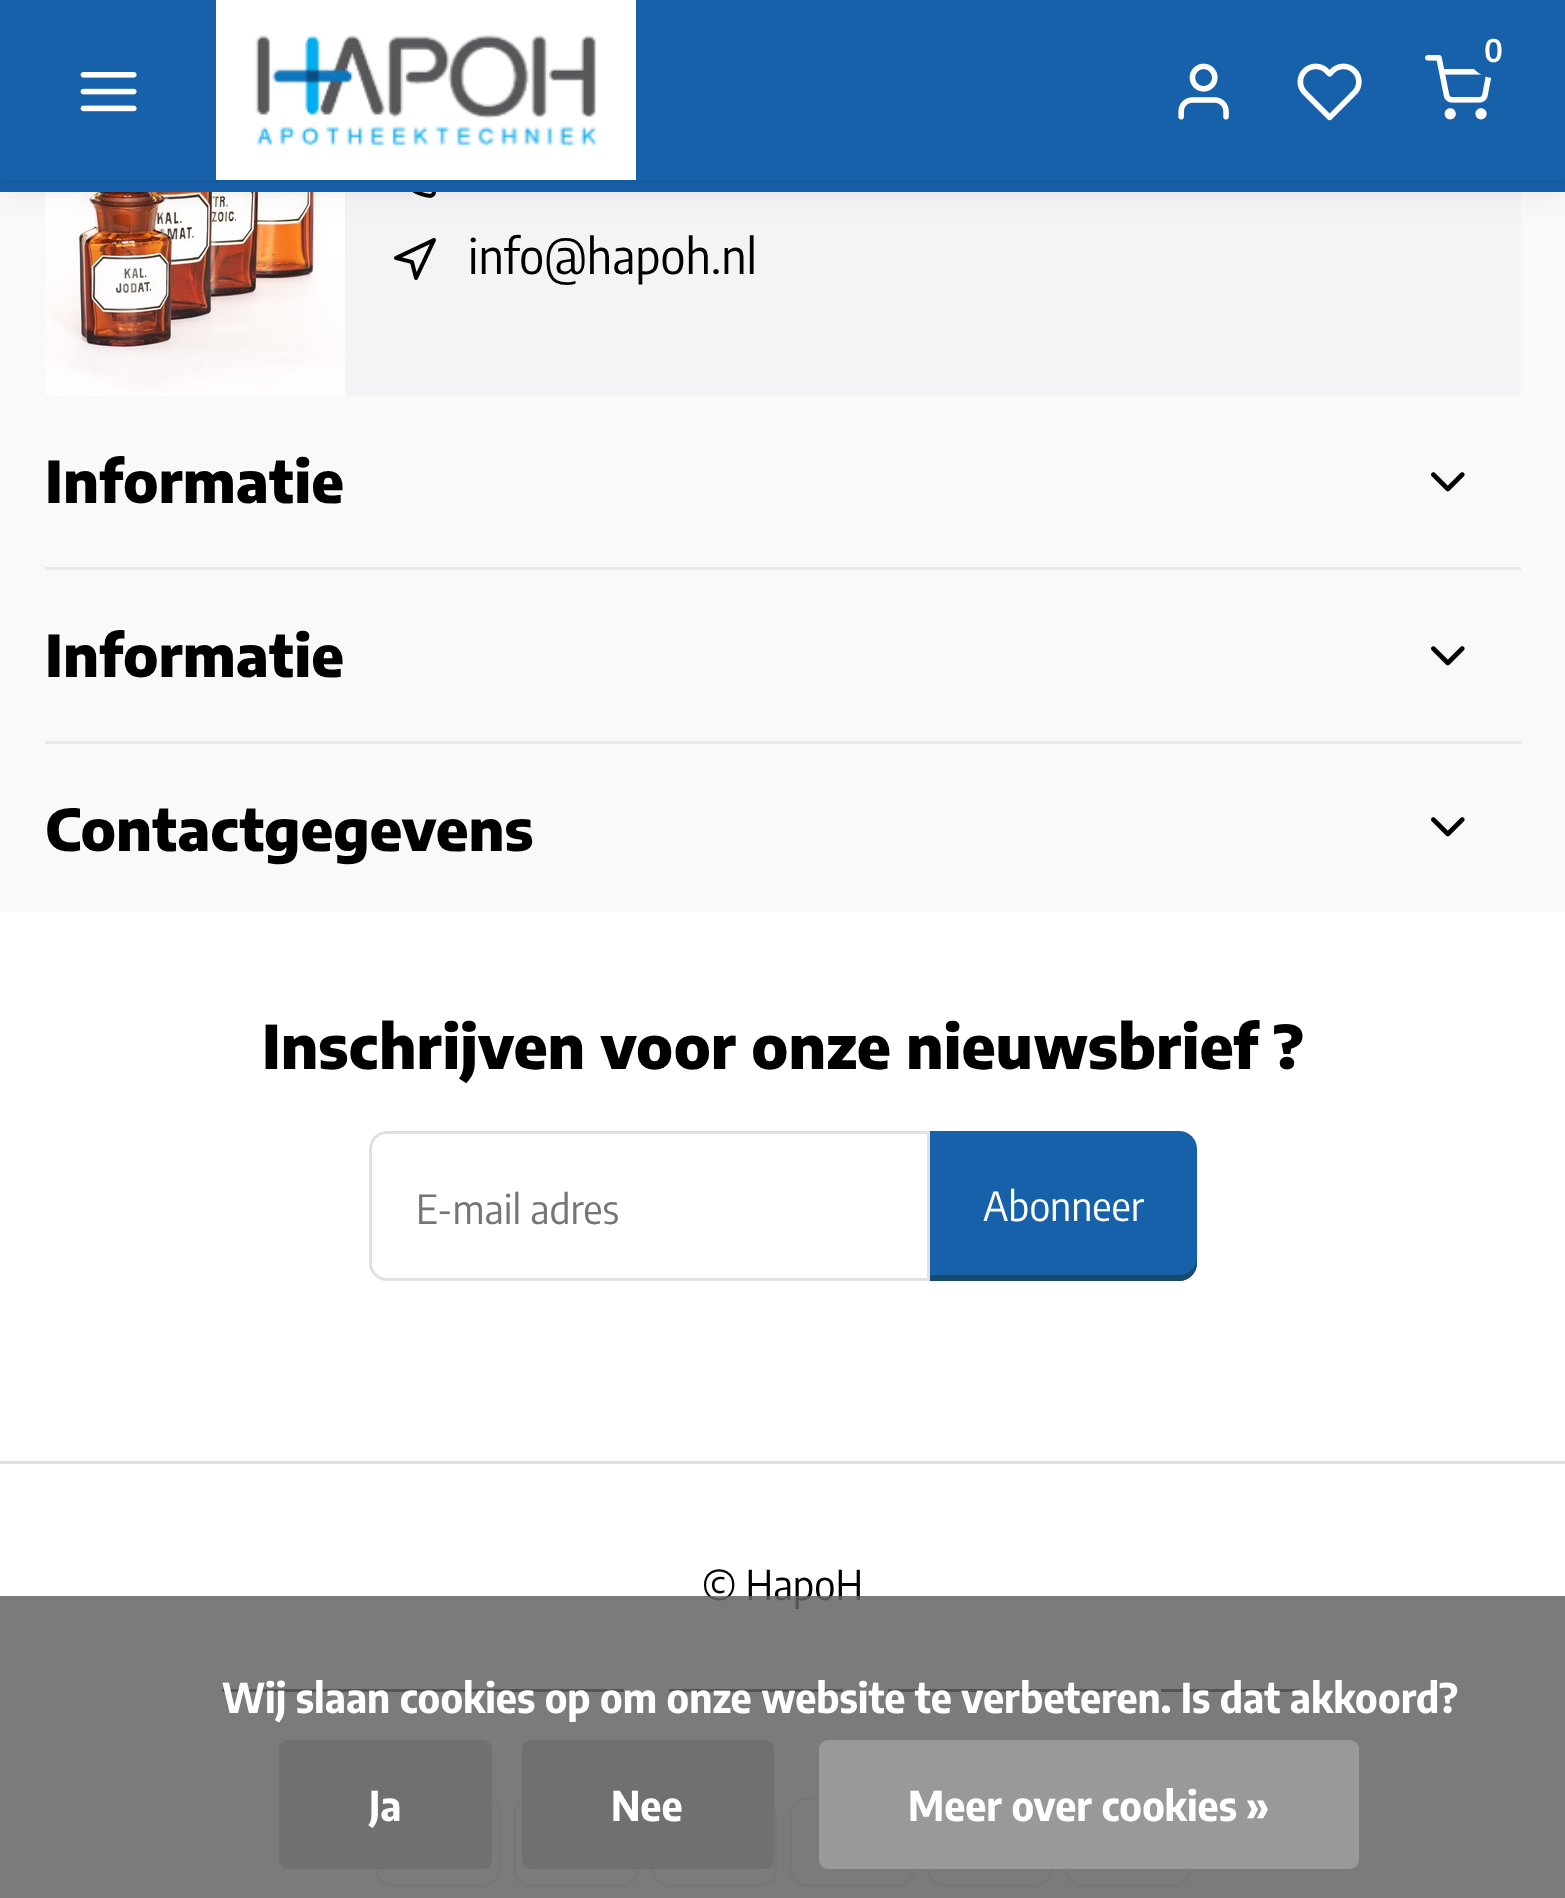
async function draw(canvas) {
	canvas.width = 1565;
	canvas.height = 1898;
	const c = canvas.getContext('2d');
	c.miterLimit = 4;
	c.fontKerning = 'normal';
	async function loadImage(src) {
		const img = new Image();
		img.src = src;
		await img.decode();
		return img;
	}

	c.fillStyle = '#fff';
	c.fillRect(0, 0, 1565, 1898);
	c.fillStyle = '#f9f9f9';
	c.fillRect(0, 192, 1565, 720);
	c.drawImage(await loadImage('img6.png'), 45, 192, 300, 204);
	c.fillStyle = '#f4f4f6';
	c.fillRect(345, 192, 1176, 204);
	c.drawImage(await loadImage('img7.png'), 412, 192, 24, 6);
	c.drawImage(await loadImage('img8.png'), 394, 238, 42, 42);
	c.fillStyle = '#0000000d';
	c.filter = 'blur(15px)';
	c.beginPath();
	c.rect(0, 15, 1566, 180);
	c.fill();
	c.filter = 'none';
	c.fillStyle = '#1760aa';
	c.fillRect(0, 180, 1565, 12);
	c.fillStyle = '#0000000d';
	c.filter = 'blur(6px)';
	c.beginPath();
	c.rect(0, 9, 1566, 180);
	c.fill();
	c.filter = 'none';
	c.fillStyle = '#1760aa';
	c.fillRect(0, 0, 1565, 180);
	c.drawImage(await loadImage('img1.png'), 80, 72, 57, 40);
	c.fillStyle = '#fff';
	c.fillRect(216, 0, 420, 180);
	c.drawImage(await loadImage('img2.png'), 255, 34, 341, 112);
	c.drawImage(await loadImage('img3.png'), 1425, 55, 67, 65);
	c.fillStyle = '#1760aa';
	c.beginPath();
	c.arc(1494, 51, 27, 0, 2 * Math.PI);
	c.fill();
	c.font = '600 31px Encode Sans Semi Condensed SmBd';
	c.fillStyle = '#fff';
	c.fillText('0', 1484, 62);
	c.drawImage(await loadImage('img4.png'), 1178, 63, 51, 57);
	c.drawImage(await loadImage('img5.png'), 1297, 63, 65, 58);
	c.font = '48px Encode Sans Semi Condensed';
	c.fillStyle = '#000';
	c.fillText('info@hapoh.nl', 468, 274);
	c.fillStyle = '#e9e9e9';
	c.fillRect(45, 567, 1476, 3);
	c.font = '100 57.5px Encode Sans Condensed';
	c.fillStyle = '#000';
	c.fillText('Informatie', 45, 503);
	c.drawImage(await loadImage('img9.png'), 1431, 472, 34, 20);
	c.fillStyle = '#e9e9e9';
	c.fillRect(45, 741, 1476, 3);
	c.fillStyle = '#000';
	c.fillText('Informatie', 45, 677);
	c.drawImage(await loadImage('img9.png'), 1431, 646, 34, 20);
	c.fillText('Contactgegevens', 45, 851);
	c.drawImage(await loadImage('img9.png'), 1431, 817, 34, 20);
	c.font = '100 60px Encode Sans Condensed';
	c.fillText('Inschrijven voor onze nieuwsbrief ?', 262, 1069);
	c.beginPath();
	c.roundRect(370.5, 1132.5, 558, 147, [16.5, 0, 0, 16.5]);
	c.strokeStyle = '#e1e1e1';
	c.lineWidth = 3;
	c.stroke();
	c.font = '40px Encode Sans Semi Condensed';
	c.fillStyle = '#757575';
	c.fillText('E-mail adres', 416, 1224);
	c.fillStyle = '#1760aa';
	c.beginPath();
	c.roundRect(930, 1131, 267, 150, [0, 18, 18, 0]);
	c.fill();
	c.fillStyle = '#1a496e';
	c.beginPath();
	c.moveTo(930, 1275);
	c.lineTo(930, 1281);
	c.lineTo(1179, 1281);
	c.bezierCurveTo(1189, 1281, 1197, 1273, 1197, 1263);
	c.lineTo(1197, 1257);
	c.bezierCurveTo(1197, 1267, 1189, 1275, 1179, 1275);
	c.closePath();
	c.fill();
	c.fillStyle = '#fff';
	c.fillText('Abonneer', 983, 1221);
	c.fillStyle = '#e1e1e1';
	c.fillRect(0, 1461, 1565, 3);
	c.font = '40.8px Encode Sans Semi Condensed';
	c.fillStyle = '#000';
	c.fillText('© HapoH', 702, 1600);
	for (const [x, y, w, h, color] of [
		[222, 1689, 402, 3, '#000'],
		[669, 1689, 174, 3, '#000'],
		[888, 1689, 228, 3, '#000'],
		[1161, 1689, 138, 3, '#000'],
	]) {
		c.fillStyle = color;
		c.fillRect(x, y, w, h);
	}
	c.beginPath();
	c.roundRect(376.5, 1798.5, 123, 87, 16.5);
	c.stroke();
	c.beginPath();
	c.roundRect(514.5, 1798.5, 123, 87, 16.5);
	c.stroke();
	c.beginPath();
	c.roundRect(652.5, 1798.5, 123, 87, 16.5);
	c.stroke();
	c.beginPath();
	c.roundRect(790.5, 1798.5, 123, 87, 16.5);
	c.stroke();
	c.drawImage(await loadImage('img10.png'), 817, 1830, 2, 4);
	c.beginPath();
	c.roundRect(928.5, 1798.5, 123, 87, 16.5);
	c.stroke();
	c.beginPath();
	c.roundRect(1066.5, 1798.5, 123, 87, 16.5);
	c.stroke();
	c.fillStyle = '#646464d9';
	c.fillRect(0, 1596, 1565, 302);
	c.font = 'bold 40.8px Encode Sans Semi Condensed';
	c.fillStyle = '#fff';
	c.fillText('Wij slaan cookies op om onze website te verbeteren. Is dat akkoord?', 222, 1713);
	c.fillStyle = '#707070';
	c.beginPath();
	c.roundRect(279, 1740, 213, 129, 9);
	c.fill();
	c.fillStyle = '#fff';
	c.fillText('Ja', 369, 1821);
	c.fillStyle = '#707070';
	c.beginPath();
	c.roundRect(522, 1740, 252, 129, 9);
	c.fill();
	c.fillStyle = '#fff';
	c.fillText('Nee', 611, 1821);
	c.fillStyle = '#999';
	c.beginPath();
	c.roundRect(819, 1740, 540, 129, 9);
	c.fill();
	c.fillStyle = '#fff';
	c.fillText('Meer over cookies »', 908, 1821);
}

draw(document.querySelector('canvas'));
